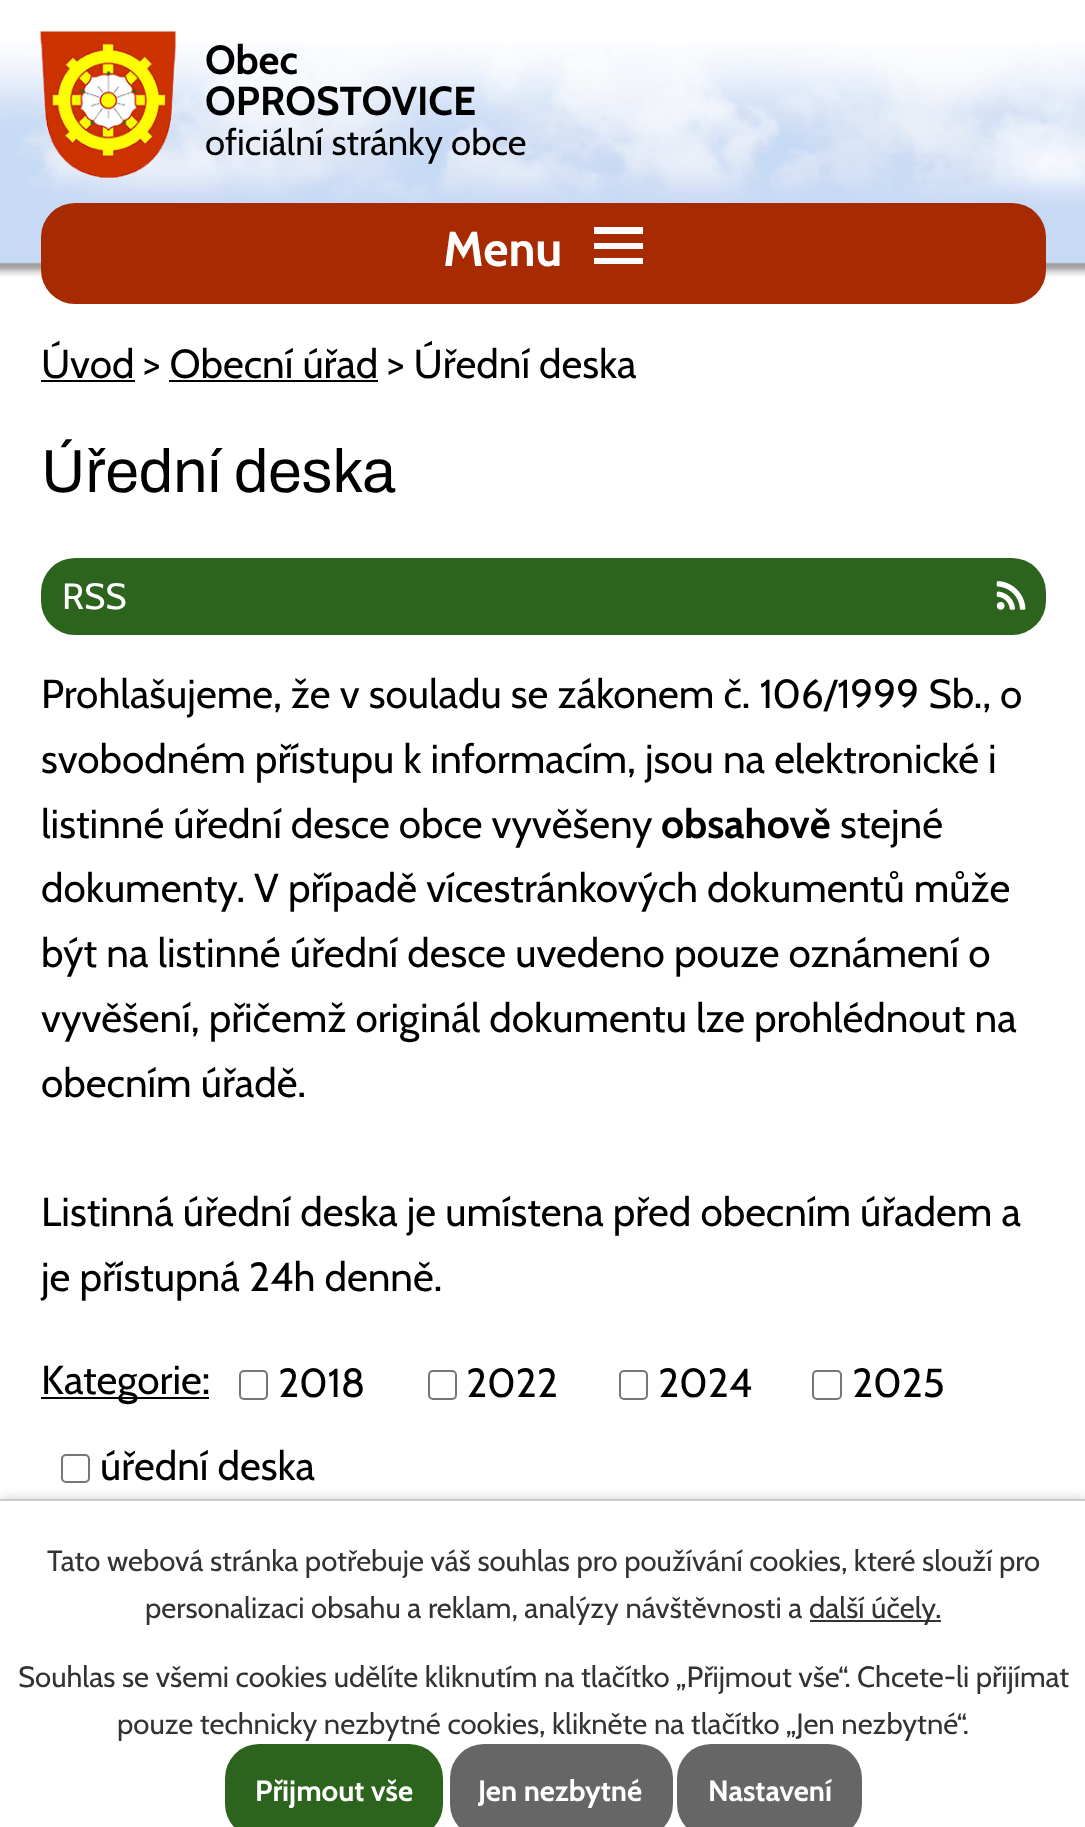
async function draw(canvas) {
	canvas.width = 1085;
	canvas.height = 1827;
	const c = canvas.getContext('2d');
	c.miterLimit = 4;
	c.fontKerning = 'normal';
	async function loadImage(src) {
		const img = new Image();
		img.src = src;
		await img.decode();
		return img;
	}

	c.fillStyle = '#fff';
	c.fillRect(0, 0, 1085, 1827);
	c.drawImage(await loadImage('img1.png'), 0, 43, 1085, 234);
	c.drawImage(await loadImage('img2.png'), 40, 31, 136, 147);
	c.font = 'bold 40.5px Cabin';
	c.fillStyle = '#000';
	c.fillText('Obec', 205, 74);
	c.fillText('OPROSTOVICE', 205, 115);
	c.font = '36.5px Cabin';
	c.fillText('oficiální stránky obce', 205, 155);
	c.fillStyle = '#a72a01';
	c.beginPath();
	c.roundRect(41, 203, 1005, 101, 34);
	c.fill();
	c.font = 'bold 49px Cabin';
	c.fillStyle = '#fff';
	c.fillText('Menu', 443, 266);
	c.beginPath();
	c.moveTo(594, 264);
	c.lineTo(594, 258);
	c.lineTo(643, 258);
	c.lineTo(643, 264);
	c.closePath();
	c.moveTo(594, 227);
	c.lineTo(643, 227);
	c.lineTo(643, 234);
	c.lineTo(594, 234);
	c.closePath();
	c.moveTo(594, 249);
	c.lineTo(594, 243);
	c.lineTo(643, 243);
	c.lineTo(643, 249);
	c.closePath();
	c.fill();
	c.font = '40.5px Cabin';
	c.fillStyle = '#000';
	c.fillText('Úvod > Obecní úřad > Úřední deska', 41, 378);
	c.fillRect(41, 380, 94, 2);
	c.fillRect(169, 380, 209, 2);
	c.font = '60.75px Archivo';
	c.fillText('Úřední deska', 41, 492);
	c.fillStyle = '#2c631d';
	c.beginPath();
	c.roundRect(41, 558, 1005, 77, 34);
	c.fill();
	c.font = '36.5px Cabin';
	c.fillStyle = '#fff';
	c.fillText('RSS', 62, 609);
	c.drawImage(await loadImage('img3.png'), 996, 581, 30, 29);
	c.font = '40.5px Cabin';
	c.fillStyle = '#000';
	for (const [text, x, y] of [
		['Prohlašujeme, že v souladu se zákonem č. 106/1999 Sb., o', 41, 708],
		['svobodném přístupu k informacím, jsou na elektronické i', 41, 773],
		['listinné úřední desce obce vyvěšeny', 41, 838],
	]) {
		c.fillText(text, x, y);
	}
	c.font = 'bold 40.5px Cabin';
	c.fillText('obsahově', 661, 838);
	c.font = '40.5px Cabin';
	for (const [text, x, y] of [
		['stejné', 840, 838],
		['dokumenty. V případě vícestránkových dokumentů může', 41, 902],
		['být na listinné úřední desce uvedeno pouze oznámení o', 41, 967],
		['vyvěšení, přičemž originál dokumentu lze prohlédnout na', 41, 1032],
		['obecním úřadě.', 41, 1097],
		['Listinná úřední deska je umístena před obecním úřadem a', 41, 1226],
		['je přístupná 24h denně.', 41, 1291],
	]) {
		c.fillText(text, x, y);
	}
	c.fillRect(41, 1397, 168, 2);
	c.fillText('Kategorie:', 41, 1394);
	c.beginPath();
	c.roundRect(240, 1371, 27, 28, 4);
	c.strokeStyle = '#767676';
	c.lineWidth = 2;
	c.stroke();
	c.fillText('2018', 278, 1397);
	c.beginPath();
	c.roundRect(429, 1371, 27, 28, 4);
	c.stroke();
	c.fillText('2022', 466, 1397);
	c.beginPath();
	c.roundRect(620, 1371, 27, 28, 4);
	c.stroke();
	c.fillText('2024', 658, 1397);
	c.beginPath();
	c.roundRect(813, 1371, 28, 28, 4);
	c.stroke();
	c.fillText('2025', 852, 1397);
	c.beginPath();
	c.roundRect(62, 1455, 27, 27, 4);
	c.stroke();
	c.fillText('úřední deska', 100, 1480);
	c.fillStyle = '#00000033';
	c.filter = 'blur(5.5px)';
	c.beginPath();
	c.rect(0, 1499, 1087, 328);
	c.fill();
	c.filter = 'none';
	c.fillStyle = '#fff';
	c.fillRect(0, 1501, 1085, 326);
	c.fillStyle = '#ccc';
	c.fillRect(0, 1499, 1085, 2);
	c.font = '29.25px Cabin';
	c.fillStyle = '#333';
	c.fillText('Tato webová stránka potřebuje váš souhlas pro používání cookies, které slouží pro', 47, 1571);
	c.fillText('personalizaci obsahu a reklam, analýzy návštěvnosti a', 145, 1618);
	c.fillRect(810, 1620, 131, 2);
	for (const [text, x, y] of [
		['další účely.', 809, 1618],
		['Souhlas se všemi cookies udělíte kliknutím na tlačítko „Přijmout vše“. Chcete-li přijímat', 18, 1687],
		['pouze technicky nezbytné cookies, klikněte na tlačítko „Jen nezbytné“.', 117, 1734],
	]) {
		c.fillText(text, x, y);
	}
	c.fillStyle = '#2c631d';
	c.beginPath();
	c.roundRect(225, 1744, 218, 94, 34);
	c.fill();
	c.font = 'bold 29.25px Cabin';
	c.fillStyle = '#fff';
	c.fillText('Přijmout vše', 255, 1801);
	c.fillStyle = '#666';
	c.beginPath();
	c.roundRect(450, 1744, 223, 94, 34);
	c.fill();
	c.fillStyle = '#fff';
	c.fillText('Jen nezbytné', 478, 1801);
	c.fillStyle = '#666';
	c.beginPath();
	c.roundRect(677, 1744, 185, 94, 34);
	c.fill();
	c.fillStyle = '#fff';
	c.fillText('Nastavení', 708, 1801);
}

draw(document.querySelector('canvas'));
